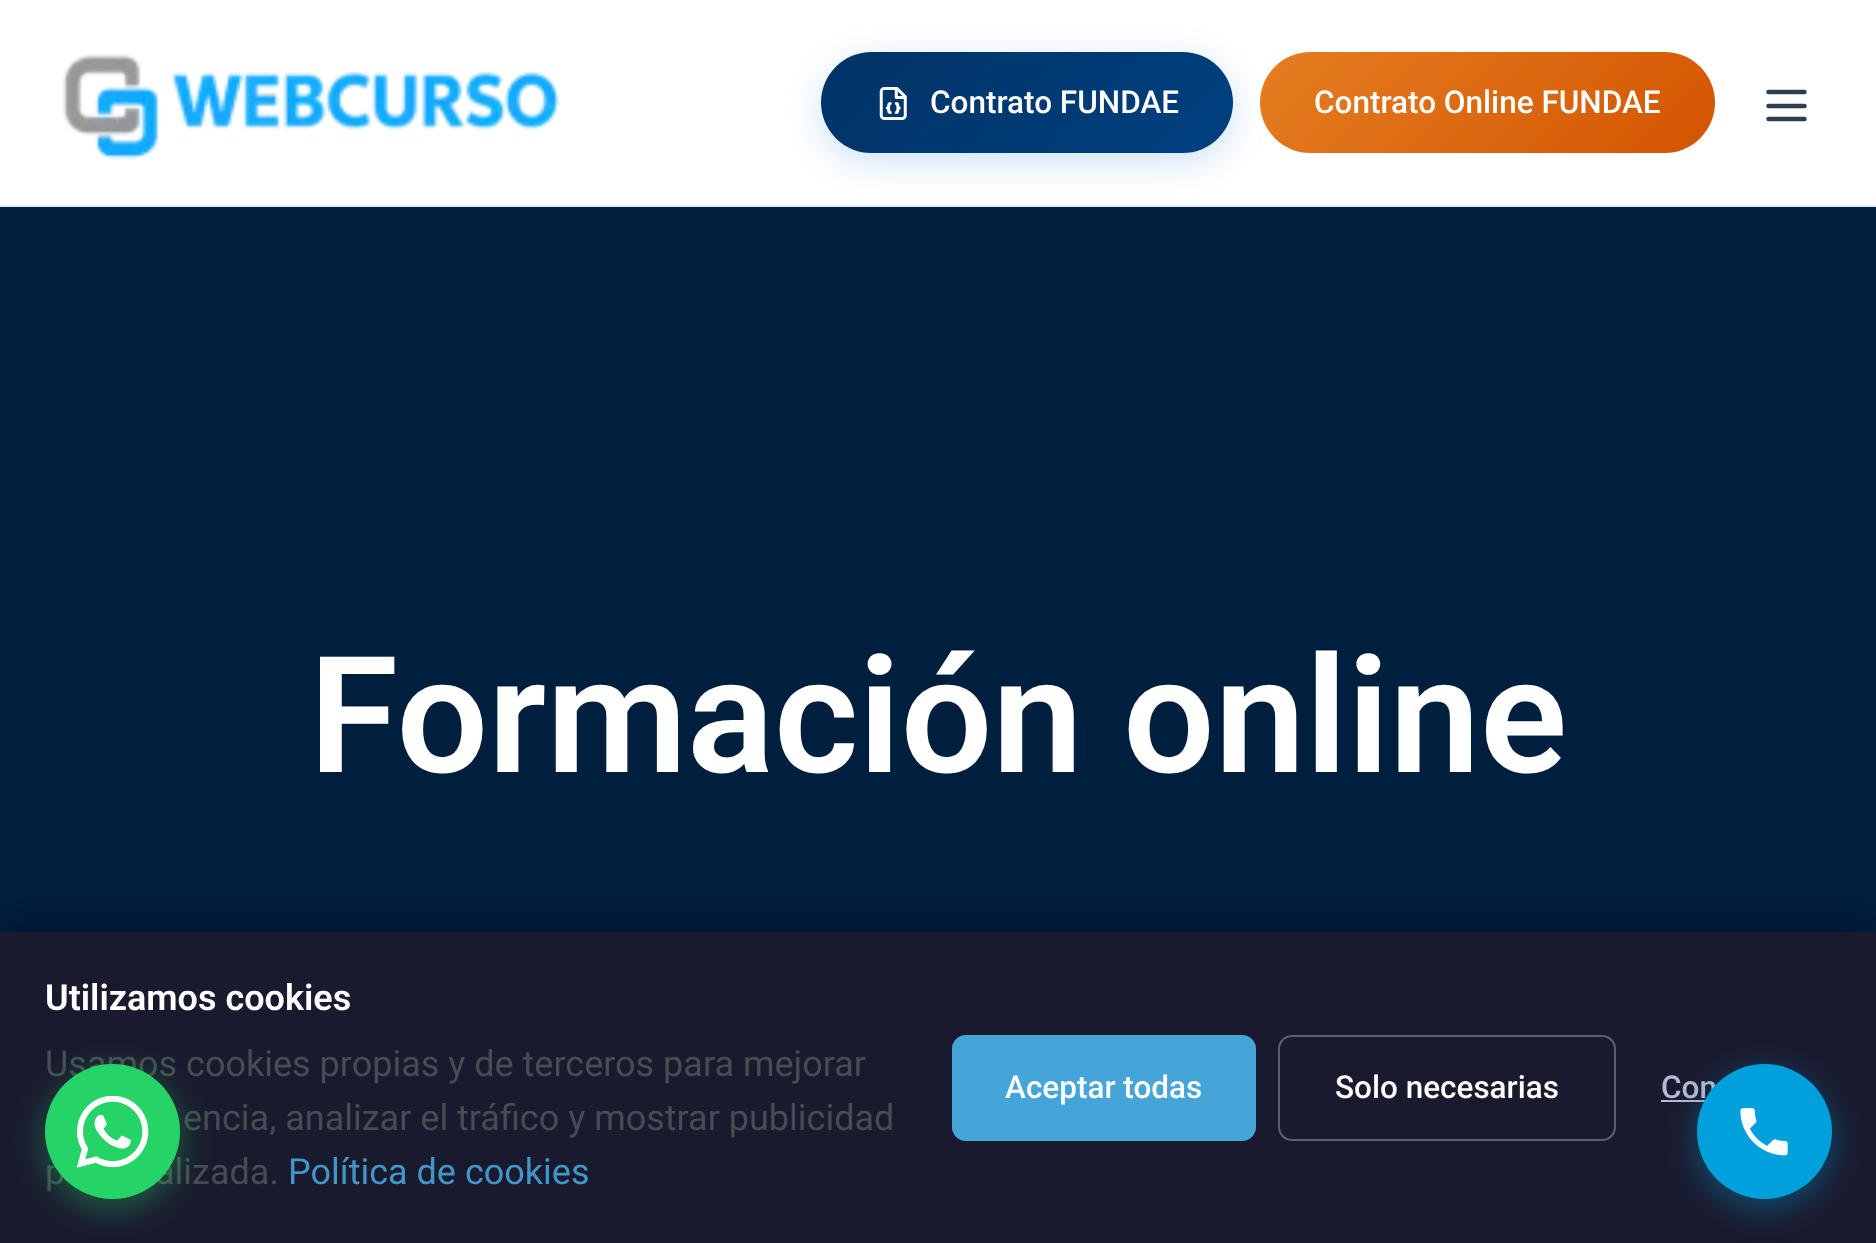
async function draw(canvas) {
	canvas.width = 1876;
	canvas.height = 1243;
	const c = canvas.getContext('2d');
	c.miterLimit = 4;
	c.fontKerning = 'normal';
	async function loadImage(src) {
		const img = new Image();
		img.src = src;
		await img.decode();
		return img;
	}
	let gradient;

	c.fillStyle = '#fff';
	c.fillRect(0, 0, 1876, 1243);
	c.fillStyle = '#e9ecef';
	c.fillRect(0, 205, 1876, 2);
	c.drawImage(await loadImage('img1.png'), 62, 54, 498, 106);
	c.fillStyle = '#001f3f';
	c.fillRect(0, 207, 1876, 725);
	c.fillStyle = '#0074d933';
	c.filter = 'blur(17px)';
	c.beginPath();
	c.roundRect(821, 61, 412, 101, 50.5);
	c.fill();
	c.filter = 'none';
	gradient = c.createLinearGradient(899, -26, 1155, 231);
	gradient.addColorStop(0, '#036');
	gradient.addColorStop(1, '#004080');
	c.fillStyle = gradient;
	c.beginPath();
	c.roundRect(821, 52, 412, 101, 50.5);
	c.fill();
	c.drawImage(await loadImage('img2.png'), 879, 87, 28, 33);
	c.font = '500 31.5px Roboto';
	c.fillStyle = '#fff';
	c.fillText('Contrato FUNDAE', 930, 113);
	gradient = c.createLinearGradient(1348, -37, 1626, 241);
	gradient.addColorStop(0, '#e67e22');
	gradient.addColorStop(1, '#d35400');
	c.fillStyle = gradient;
	c.beginPath();
	c.roundRect(1260, 52, 455, 101, 50.5);
	c.fill();
	c.fillStyle = '#fff';
	c.fillText('Contrato Online FUNDAE', 1314, 113);
	c.beginPath();
	c.moveTo(1768.5, 106);
	c.lineTo(1804.5, 106);
	c.moveTo(1768.5, 92);
	c.lineTo(1804.5, 92);
	c.moveTo(1768.5, 119);
	c.lineTo(1804.5, 119);
	c.strokeStyle = '#2c3e50';
	c.lineWidth = 4.5;
	c.lineCap = 'round';
	c.lineJoin = 'round';
	c.stroke();
	c.font = '600 162px Roboto';
	c.fillText('Formación online', 309, 772);
	c.fillStyle = '#0000004d';
	c.filter = 'blur(22.5px)';
	c.beginPath();
	c.rect(0, 923, 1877, 312);
	c.fill();
	c.filter = 'none';
	c.fillStyle = '#1a1a2e';
	c.fillRect(0, 932, 1876, 311);
	c.font = '600 36px Roboto';
	c.fillStyle = '#fff';
	c.fillText('Utilizamos cookies', 45, 1010);
	c.font = '36px Roboto';
	c.fillStyle = '#454d51';
	for (const [text, x, y] of [
		['Usamos cookies propias y de terceros para mejorar', 45, 1076],
		['encia, analizar el tráfico y mostrar publicidad', 183, 1130],
		['p', 45, 1184],
		['alizada.', 155, 1184],
	]) {
		c.fillText(text, x, y);
	}
	c.fillStyle = '#4197c7';
	c.fillText('Política de cookies', 288, 1184);
	c.fillStyle = '#45a5d8';
	c.beginPath();
	c.roundRect(952, 1035, 304, 106, 14);
	c.fill();
	c.font = '500 31.5px Roboto';
	c.fillStyle = '#fff';
	c.fillText('Aceptar todas', 1005, 1098);
	c.beginPath();
	c.roundRect(1279, 1036, 336, 104, 13);
	c.strokeStyle = '#5f5f6d';
	c.lineWidth = 2;
	c.lineJoin = 'miter';
	c.stroke();
	c.fillText('Solo necesarias', 1335, 1098);
	c.fillStyle = '#b8b8d1';
	c.fillText('Con', 1661, 1098);
	c.fillRect(1661, 1100, 44, 2);
	c.fillStyle = '#25d36666';
	c.filter = 'blur(17px)';
	c.beginPath();
	c.roundRect(45, 1073, 135, 135, 67.5);
	c.fill();
	c.filter = 'none';
	c.fillStyle = '#25d366';
	c.beginPath();
	c.arc(112.5, 1131.5, 67.5, 0, 2 * Math.PI);
	c.fill();
	c.drawImage(await loadImage('img3.png'), 77, 1096, 72, 72);
	c.fillStyle = '#00a0dc66';
	c.filter = 'blur(17px)';
	c.beginPath();
	c.roundRect(1697, 1073, 135, 135, 67.5);
	c.fill();
	c.filter = 'none';
	c.fillStyle = '#00a0dc';
	c.beginPath();
	c.arc(1764.5, 1131.5, 67.5, 0, 2 * Math.PI);
	c.fill();
	c.drawImage(await loadImage('img4.png'), 1740, 1108, 48, 48);
}

draw(document.querySelector('canvas'));
